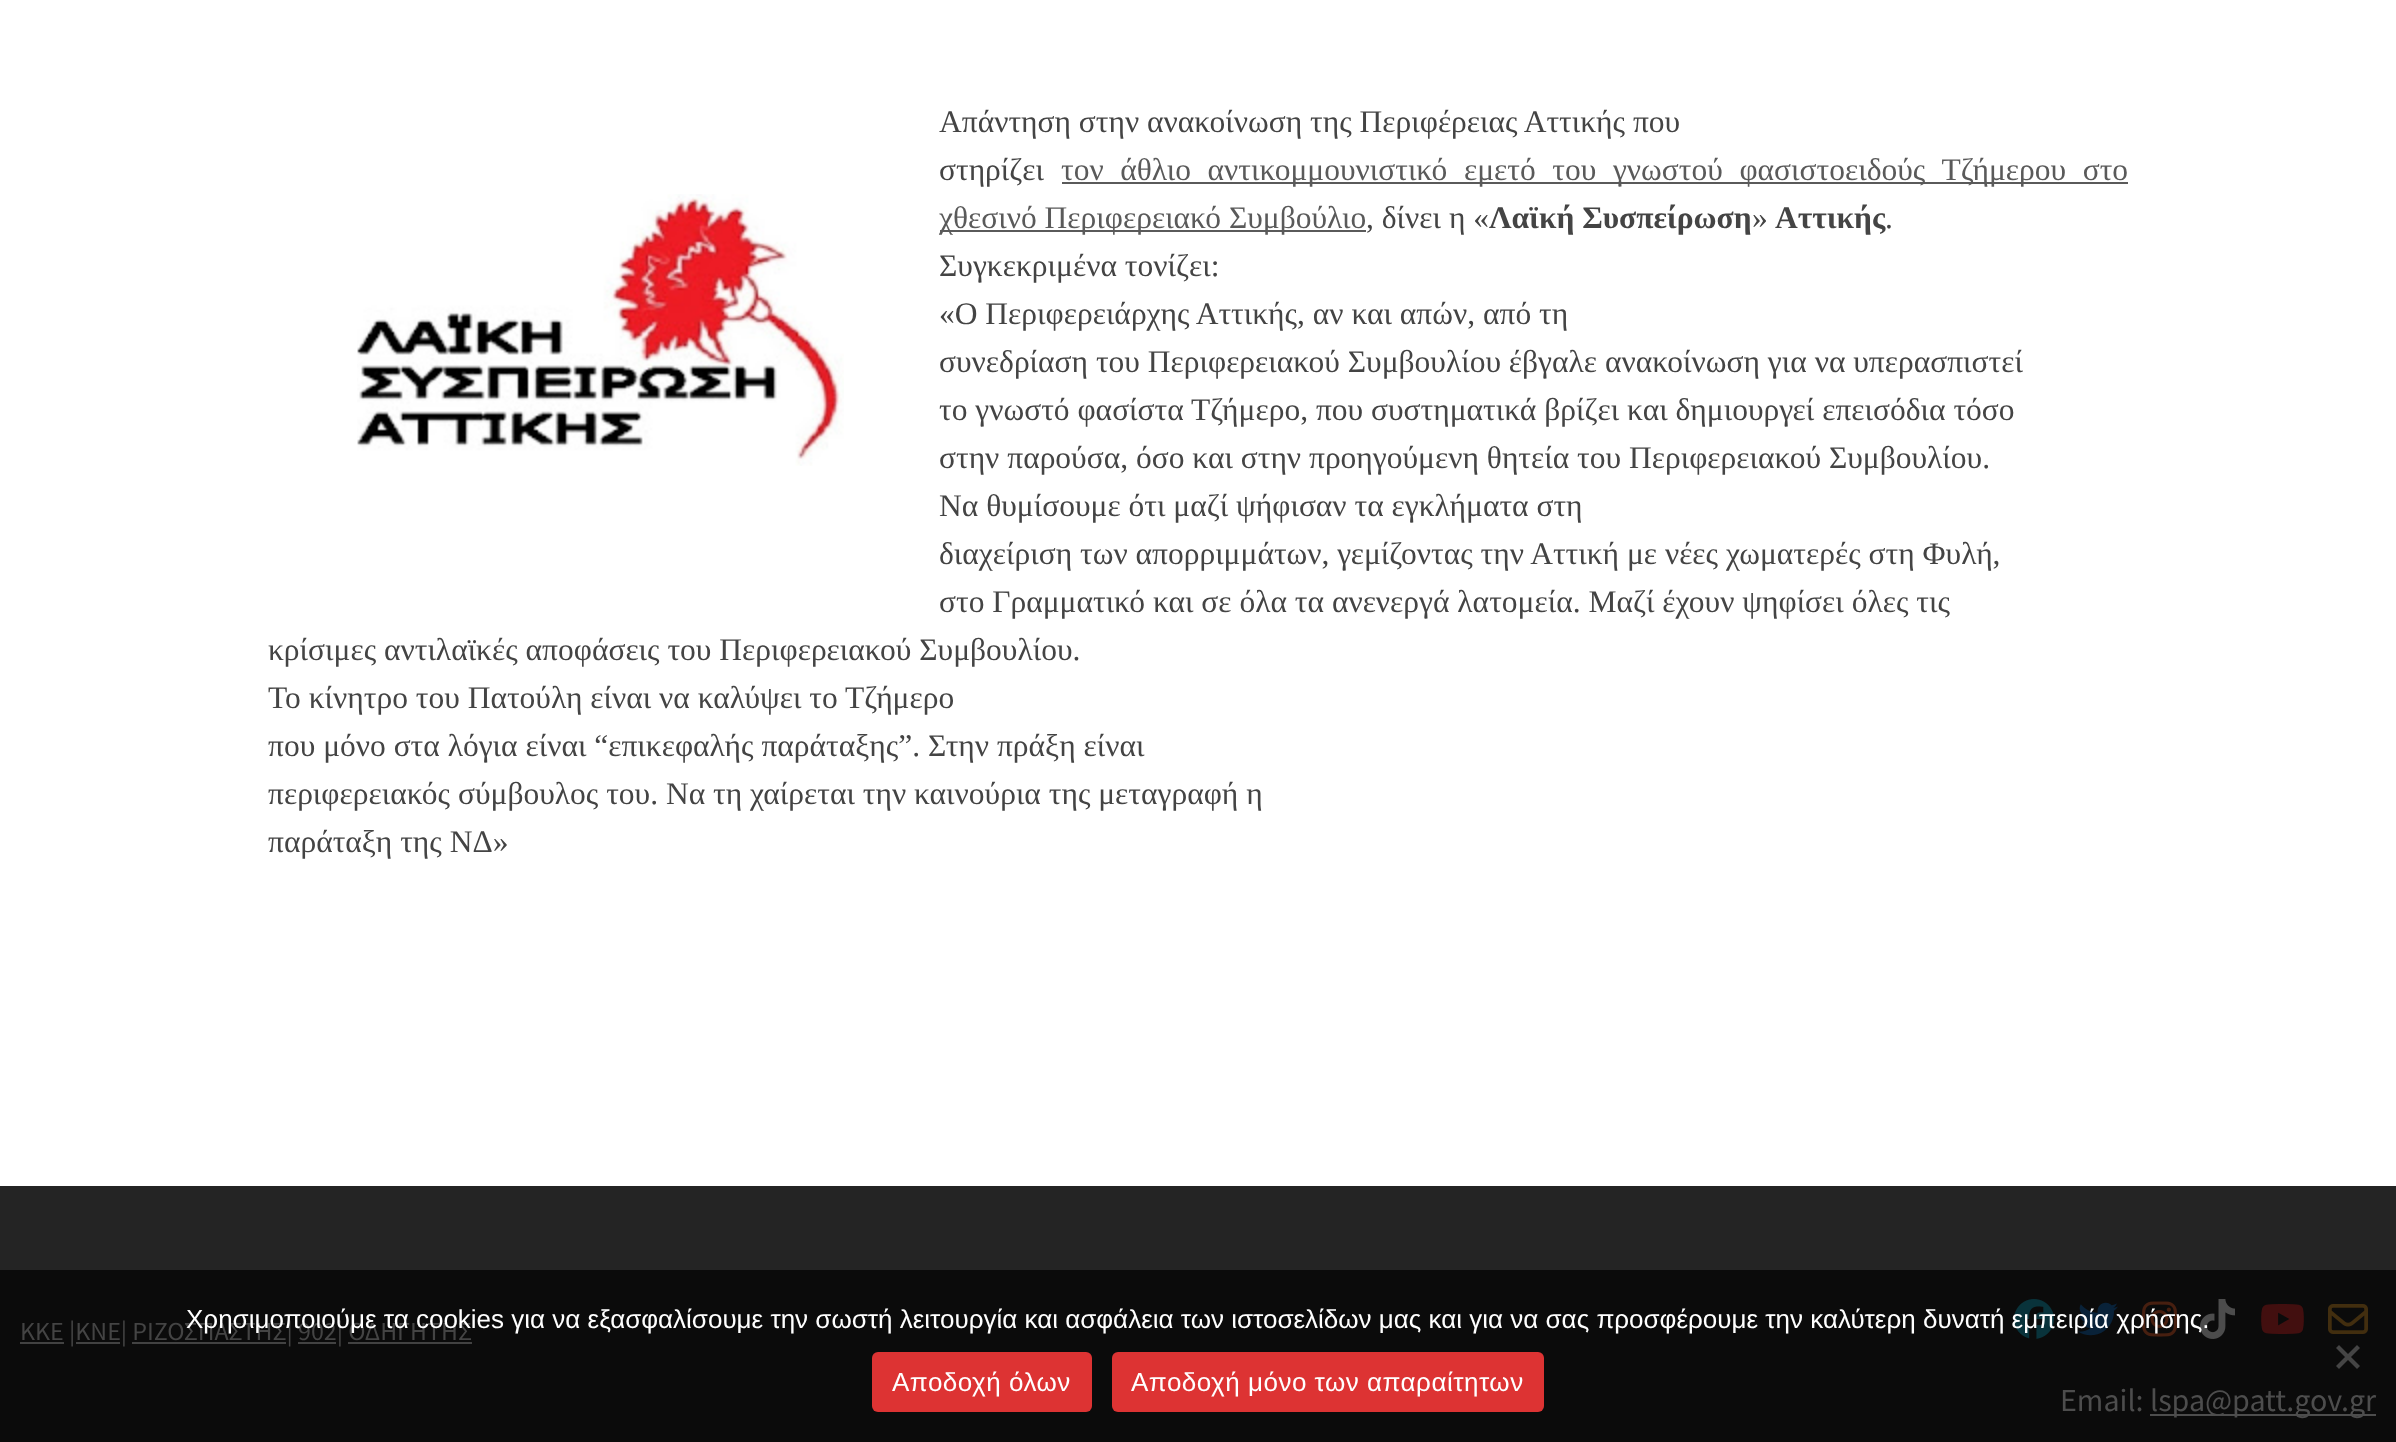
async function draw(canvas) {
	canvas.width = 2396;
	canvas.height = 1442;
	const c = canvas.getContext('2d');
	c.miterLimit = 4;
	c.fontKerning = 'normal';
	async function loadImage(src) {
		const img = new Image();
		img.src = src;
		await img.decode();
		return img;
	}

	c.fillStyle = '#fff';
	c.fillRect(0, 0, 2396, 1442);
	c.font = '31.5px Liberation Serif';
	c.fillStyle = '#444';
	c.fillText('Απάντηση στην ανακοίνωση της Περιφέρειας Αττικής που', 939, 132);
	c.fillText('στηρίζει', 939, 180);
	c.fillStyle = '#5a5a5a';
	c.fillRect(1062, 182, 1066, 2);
	c.wordSpacing = '8.75px';
	c.fillText('τον άθλιο αντικομμουνιστικό εμετό του γνωστού φασιστοειδούς Τζήμερου στο', 1061, 180);
	c.drawImage(await loadImage('img1.png'), 357, 194, 487, 272);
	c.fillRect(940, 230, 426, 2);
	c.wordSpacing = '0px';
	c.fillText('χθεσινό Περιφερειακό Συμβούλιο', 939, 228);
	c.fillStyle = '#444';
	c.fillText(', δίνει η «', 1366, 228);
	c.font = 'bold 31.5px Liberation Serif';
	c.fillText('Λαϊκή Συσπείρωση', 1489, 228);
	c.font = '31.5px Liberation Serif';
	c.fillText('»', 1752, 228);
	c.font = 'bold 31.5px Liberation Serif';
	c.fillText('Αττικής', 1775, 228);
	c.font = '31.5px Liberation Serif';
	for (const [text, x, y] of [
		['.', 1885, 228],
		['Συγκεκριμένα τονίζει:', 939, 276],
		['«Ο Περιφερειάρχης Αττικής, αν και απών, από τη', 939, 324],
		['συνεδρίαση του Περιφερειακού Συμβουλίου έβγαλε ανακοίνωση για να υπερασπιστεί', 939, 372],
		['το γνωστό φασίστα Τζήμερο, που συστηματικά βρίζει και δημιουργεί επεισόδια τόσο', 939, 420],
		['στην παρούσα, όσο και στην προηγούμενη θητεία του Περιφερειακού Συμβουλίου.', 939, 468],
		['Να θυμίσουμε ότι μαζί ψήφισαν τα εγκλήματα στη', 939, 516],
		['διαχείριση των απορριμμάτων, γεμίζοντας την Αττική με νέες χωματερές στη Φυλή,', 939, 564],
		['στο Γραμματικό και σε όλα τα ανενεργά λατομεία. Μαζί έχουν ψηφίσει όλες τις', 939, 612],
		['κρίσιμες αντιλαϊκές αποφάσεις του Περιφερειακού Συμβουλίου.', 268, 660],
		['Το κίνητρο του Πατούλη είναι να καλύψει το Τζήμερο', 268, 708],
		['που μόνο στα λόγια είναι “επικεφαλής παράταξης”. Στην πράξη είναι', 268, 756],
		['περιφερειακός σύμβουλος του. Να τη χαίρεται την καινούρια της μεταγραφή η', 268, 804],
		['παράταξη της ΝΔ»', 268, 852],
	]) {
		c.fillText(text, x, y);
	}
	for (const [x, y, w, h, color] of [
		[0, 1186, 2396, 84, '#242424'],
		[0, 1270, 2396, 172, '#0b0b0b'],
		[20, 1342, 44, 2, '#424242'],
	]) {
		c.fillStyle = color;
		c.fillRect(x, y, w, h);
	}
	c.font = '26px Source Sans Pro';
	c.fillStyle = '#444';
	c.fillText('ΚΚΕ |ΚΝΕ| ΡΙΖΟΣΠΑΣΤΗΣ| 902| ΟΔΗΓΗΤΗΣ', 20, 1340);
	for (const [x, y, w, h, color] of [
		[76, 1342, 44, 2, '#424242'],
		[132, 1342, 154, 2, '#424242'],
		[298, 1342, 38, 2, '#424242'],
		[348, 1342, 124, 2, '#424242'],
	]) {
		c.fillStyle = color;
		c.fillRect(x, y, w, h);
	}
	c.drawImage(await loadImage('img2.png'), 2014, 1299, 40, 40);
	c.drawImage(await loadImage('img3.png'), 2078, 1302, 40, 34);
	c.drawImage(await loadImage('img4.png'), 2142, 1301, 35, 36);
	c.drawImage(await loadImage('img5.png'), 2200, 1299, 35, 40);
	c.drawImage(await loadImage('img6.png'), 2261, 1304, 43, 30);
	c.drawImage(await loadImage('img7.png'), 2328, 1304, 40, 30);
	c.font = '32px Source Sans Pro';
	c.fillStyle = '#4d4d4d';
	c.fillText('Email:', 2060, 1411);
	c.fillRect(2150, 1414, 226, 2);
	c.fillText('lspa@patt.gov.gr', 2150, 1411);
	c.font = '26px Liberation Sans';
	c.fillStyle = '#fff';
	c.fillText('Χρησιμοποιούμε τα cookies για να εξασφαλίσουμε την σωστή λειτουργία και ασφάλεια των ιστοσελίδων μας και για να σας προσφέρουμε την καλύτερη δυνατή εμπειρία χρήσης.', 186, 1328);
	c.fillStyle = '#454545';
	c.beginPath();
	c.moveTo(2357, 1345);
	c.lineTo(2360, 1348);
	c.lineTo(2339, 1369);
	c.lineTo(2336, 1366);
	c.closePath();
	c.fill();
	c.beginPath();
	c.moveTo(2336, 1348);
	c.lineTo(2339, 1345);
	c.lineTo(2360, 1366);
	c.lineTo(2357, 1369);
	c.closePath();
	c.fill();
	c.fillStyle = '#d33';
	c.beginPath();
	c.roundRect(872, 1352, 220, 60, 6);
	c.fill();
	c.letterSpacing = '0.5px';
	c.fillStyle = '#fff';
	c.fillText('Αποδοχή όλων', 892, 1391);
	c.fillStyle = '#d33';
	c.beginPath();
	c.roundRect(1112, 1352, 432, 60, 6);
	c.fill();
	c.fillStyle = '#fff';
	c.fillText('Aποδοχή μόνο των απαραίτητων', 1131, 1391);
}

draw(document.querySelector('canvas'));
